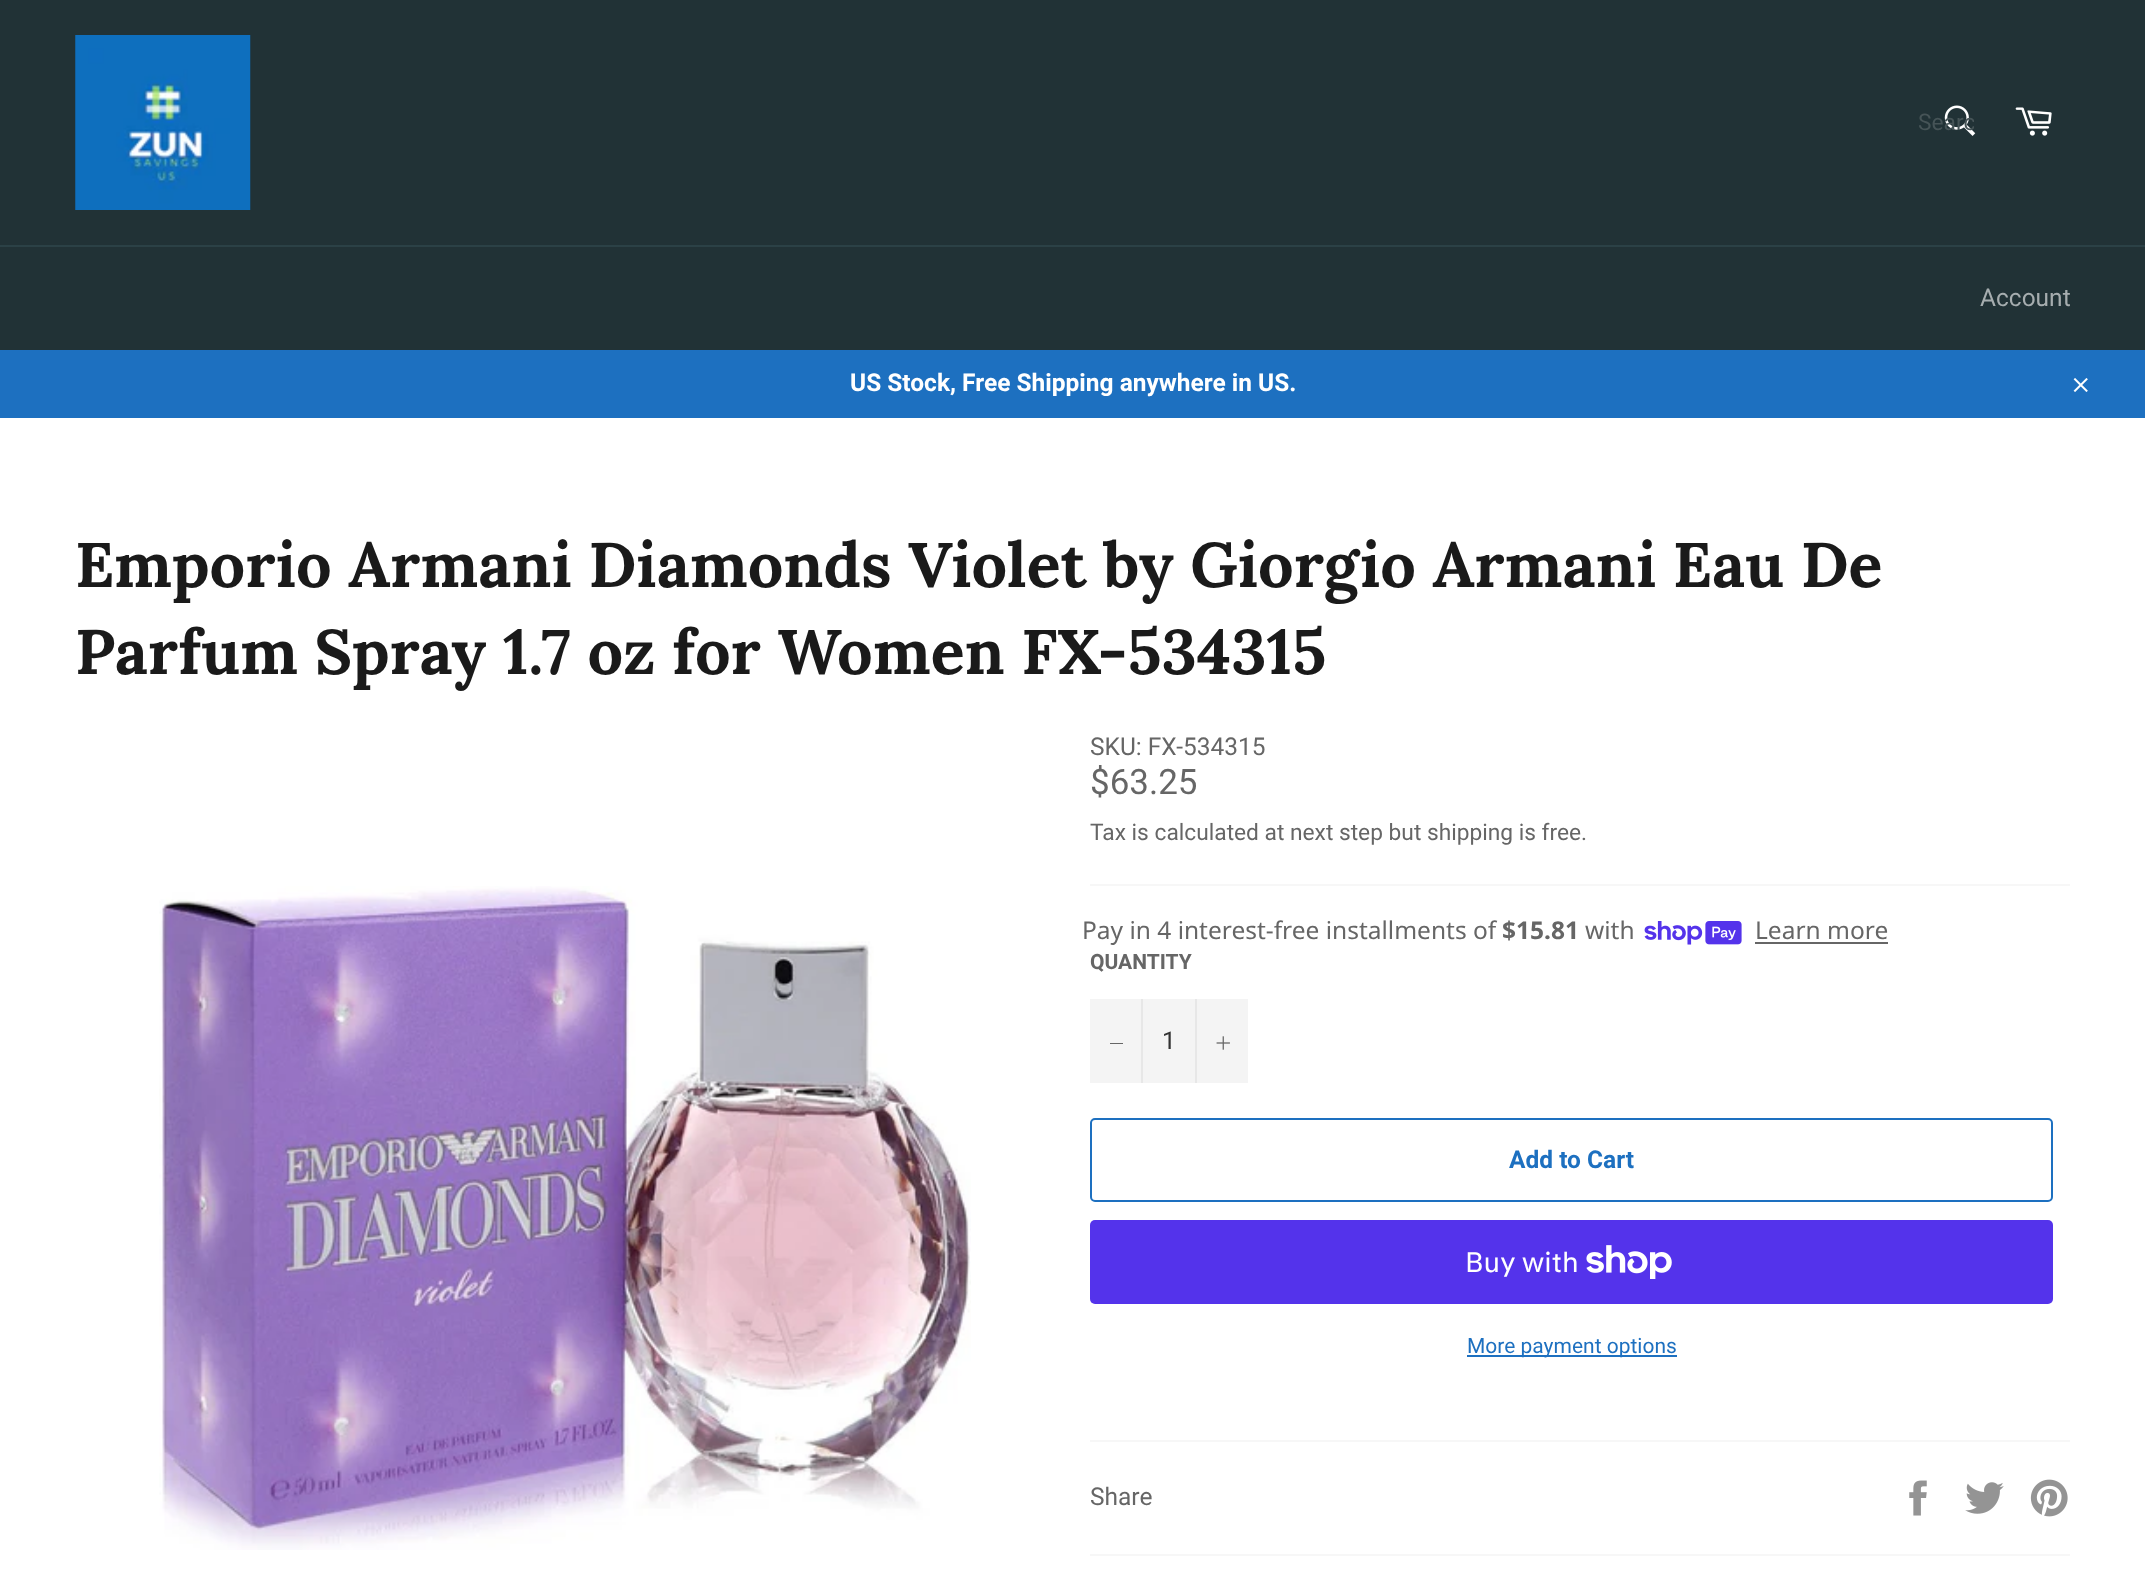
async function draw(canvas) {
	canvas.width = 2145;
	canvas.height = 1595;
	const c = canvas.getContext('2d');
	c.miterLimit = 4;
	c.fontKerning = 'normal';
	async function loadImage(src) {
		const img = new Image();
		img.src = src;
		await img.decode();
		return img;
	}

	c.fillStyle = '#213236';
	c.fillRect(0, 0, 2145, 1595);
	c.drawImage(await loadImage('img1.png'), 75, 35, 176, 175);
	c.drawImage(await loadImage('img2.png'), 1944, 105, 32, 31);
	c.save();
	c.beginPath();
	c.rect(1918, 110, 56, 27);
	c.clip();
	c.font = '22.75px Roboto';
	c.fillStyle = '#465457';
	c.fillText('Searc', 1918, 130);
	c.restore();
	c.drawImage(await loadImage('img3.png'), 2015, 107, 37, 29);
	c.fillStyle = '#2b4146';
	c.fillRect(0, 245, 2145, 2);
	c.font = '24.5px Roboto';
	c.fillStyle = '#a6adaf';
	c.fillText('Account', 1980, 306);
	c.fillStyle = '#1d70c0';
	c.fillRect(0, 350, 2145, 68);
	c.font = 'bold 24.5px Roboto';
	c.fillStyle = '#fff';
	c.fillText('US Stock, Free Shipping anywhere in US.', 850, 391);
	c.drawImage(await loadImage('img4.png'), 2073, 378, 15, 14);
	c.fillRect(0, 418, 2145, 1177);
	c.font = 'bold 63px Lora';
	c.fillStyle = '#1a1a1a';
	c.fillText('Emporio Armani Diamonds Violet by Giorgio Armani Eau De', 75, 587);
	c.fillText('Parfum Spray 1.7 oz for Women FX-534315', 75, 674);
	c.drawImage(await loadImage('img5.png'), 159, 886, 812, 664);
	c.font = '24.5px Roboto';
	c.fillStyle = '#666';
	c.fillText('SKU: FX-534315', 1090, 755);
	c.font = '35px Roboto';
	c.fillText('$63.25', 1090, 794);
	c.font = '22.75px Roboto';
	c.fillText('Tax is calculated at next step but shipping is free.', 1090, 840);
	c.fillStyle = '#f7f7f7';
	c.fillRect(1090, 884, 980, 2);
	c.font = '24.5px Noto Sans';
	c.fillStyle = '#666';
	c.fillText('Pay in 4 interest-free installments of', 1082, 939);
	c.font = 'bold 24.5px Noto Sans';
	c.fillText('$15.81', 1502, 939);
	c.font = '24.5px Noto Sans';
	c.fillText('with', 1585, 939);
	c.drawImage(await loadImage('img6.png'), 1644, 921, 98, 24);
	c.fillText('Learn more', 1755, 939);
	c.fillRect(1755, 942, 133, 2);
	c.font = 'bold 21px Roboto';
	c.fillText('QUANTITY', 1090, 969);
	for (const [x, y, w, h, color] of [
		[1090, 999, 158, 84, '#f4f4f4'],
		[1141, 999, 2, 84, '#e7e7e7'],
		[1110, 1043, 13, 1, '#666'],
	]) {
		c.fillStyle = color;
		c.fillRect(x, y, w, h);
	}
	c.font = '24.5px Roboto';
	c.fillStyle = '#333';
	c.fillText('1', 1162, 1049);
	c.fillStyle = '#e7e7e7';
	c.fillRect(1195, 999, 2, 84);
	c.drawImage(await loadImage('img7.png'), 1216, 1036, 14, 14);
	c.beginPath();
	c.roundRect(1091, 1119, 961, 82, 4);
	c.strokeStyle = '#1d70c0';
	c.lineWidth = 2;
	c.stroke();
	c.font = 'bold 24.5px Roboto';
	c.fillStyle = '#1d70c0';
	c.fillText('Add to Cart', 1509, 1168);
	c.fillStyle = '#5433eb';
	c.beginPath();
	c.roundRect(1090, 1220, 963, 84, 5);
	c.fill();
	c.font = '28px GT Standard';
	c.fillStyle = '#fff';
	c.fillText('Buy with', 1465, 1272);
	c.drawImage(await loadImage('img8.png'), 1586, 1245, 86, 34);
	c.fillStyle = '#1d70c0';
	c.fillRect(1467, 1355, 210, 2);
	c.font = '21px Roboto';
	c.fillText('More payment options', 1467, 1353);
	c.fillStyle = '#f7f7f7';
	c.fillRect(1090, 1440, 980, 2);
	c.font = '24.5px Roboto';
	c.fillStyle = '#666';
	c.fillText('Share', 1090, 1505);
	c.drawImage(await loadImage('img9.png'), 1909, 1480, 18, 36);
	c.drawImage(await loadImage('img10.png'), 1965, 1482, 39, 32);
	c.drawImage(await loadImage('img11.png'), 2030, 1479, 38, 38);
	c.fillStyle = '#f7f7f7';
	c.fillRect(1090, 1554, 980, 2);
}

draw(document.querySelector('canvas'));
